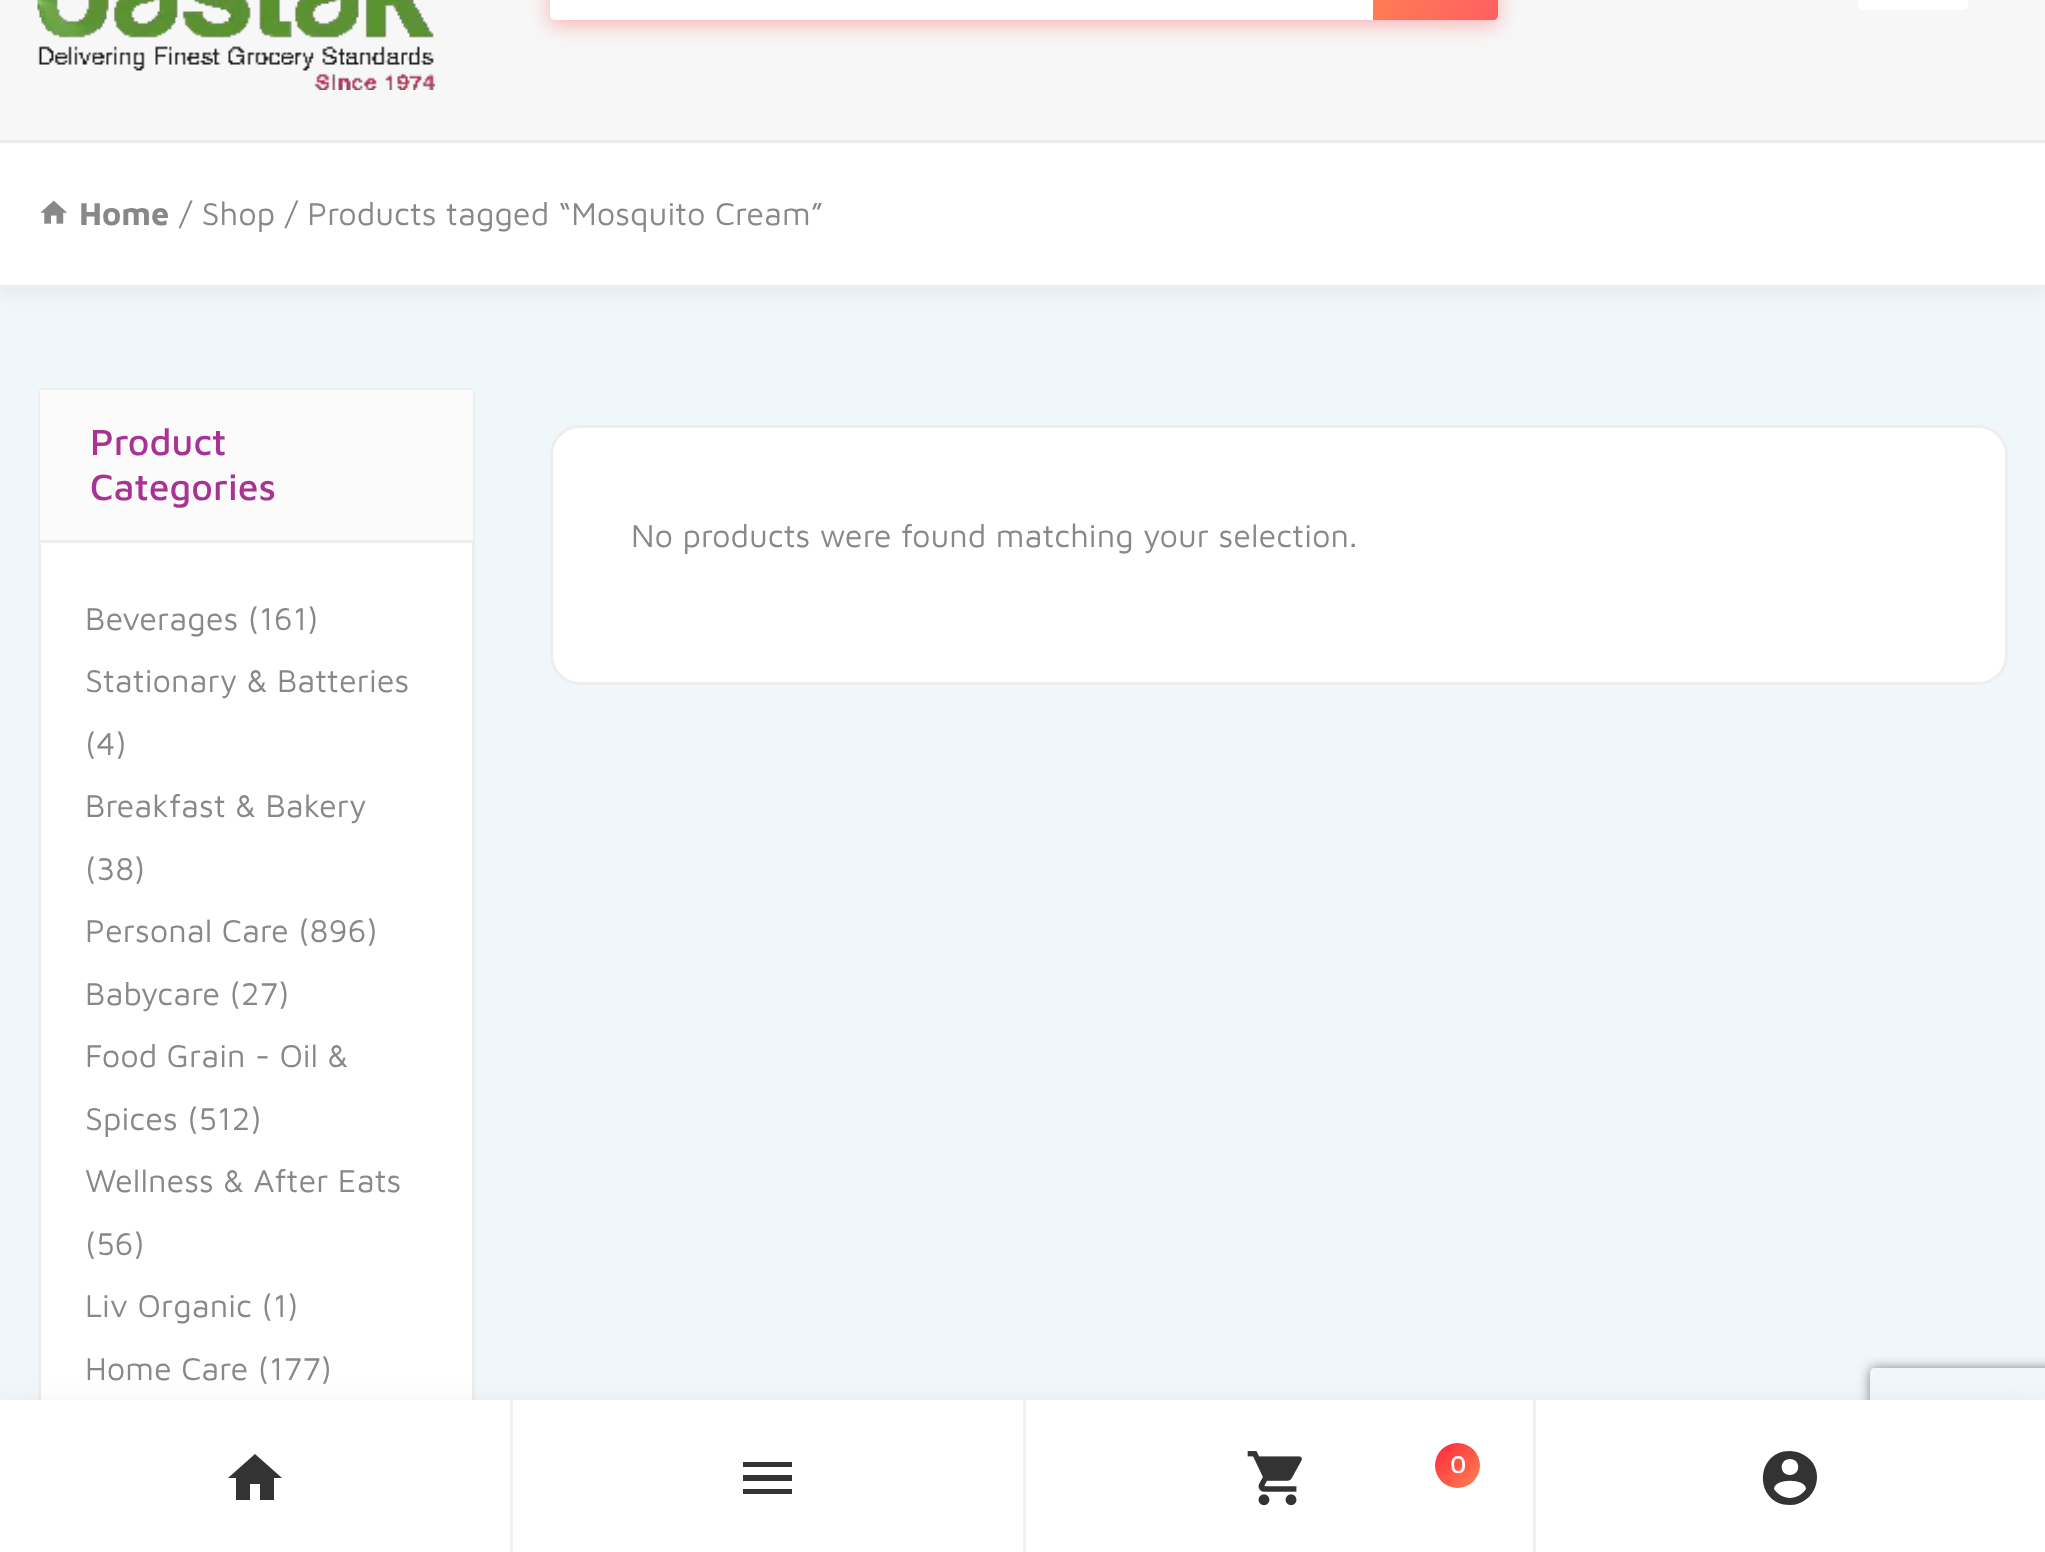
async function draw(canvas) {
	canvas.width = 2045;
	canvas.height = 1552;
	const c = canvas.getContext('2d');
	c.miterLimit = 4;
	c.fontKerning = 'normal';
	async function loadImage(src) {
		const img = new Image();
		img.src = src;
		await img.decode();
		return img;
	}
	let gradient;

	c.fillStyle = '#eff7fa';
	c.fillRect(0, 0, 2045, 1552);
	c.fillStyle = '#0000000f';
	c.filter = 'blur(10px)';
	c.beginPath();
	c.rect(0, 145, 2045, 148);
	c.fill();
	c.filter = 'none';
	c.fillStyle = '#f7f7f7';
	c.fillRect(0, 0, 2045, 140);
	c.drawImage(await loadImage('img1.png'), 37, 0, 398, 90);
	c.fillStyle = '#ff616275';
	c.filter = 'blur(10px)';
	c.beginPath();
	c.rect(550, -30, 948, 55);
	c.fill();
	c.filter = 'none';
	c.fillStyle = '#fff';
	c.beginPath();
	c.roundRect(550, -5, 948, 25, 5);
	c.fill();
	gradient = c.createLinearGradient(1376, -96, 1494, 23);
	gradient.addColorStop(0, '#ff934b');
	gradient.addColorStop(1, '#ff5e62');
	c.fillStyle = gradient;
	c.beginPath();
	c.moveTo(1373, -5);
	c.lineTo(1493, -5);
	c.bezierCurveTo(1496, -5, 1498, -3, 1498, 0);
	c.lineTo(1498, 15);
	c.bezierCurveTo(1498, 18, 1496, 20, 1493, 20);
	c.lineTo(1373, 20);
	c.closePath();
	c.fill();
	c.fillStyle = '#fff';
	c.beginPath();
	c.roundRect(1858, -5, 110, 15, 5);
	c.fill();
	for (const [x, y, w, h, color] of [
		[0, 143, 2045, 142, '#fff'],
		[0, 140, 2045, 3, '#ececec'],
		[0, 285, 2045, 3, '#eee'],
	]) {
		c.fillStyle = color;
		c.fillRect(x, y, w, h);
	}
	c.drawImage(await loadImage('img2.png'), 40, 200, 27, 24);
	c.font = 'bold 32.5px Maven Pro';
	c.fillStyle = '#888';
	c.fillText('Home', 79, 225);
	c.font = '32.5px Maven Pro';
	c.fillText('/ Shop / Products tagged “Mosquito Cream”', 179, 225);
	c.fillStyle = '#fff';
	c.beginPath();
	c.roundRect(39.5, 389.5, 434, 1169, 3.5);
	c.fill();
	c.strokeStyle = '#eee';
	c.lineWidth = 3;
	c.stroke();
	c.fillStyle = '#fbfbfb';
	c.fillRect(40, 390, 433, 150);
	c.fillStyle = '#eee';
	c.fillRect(40, 540, 433, 3);
	c.font = '500 37.5px Maven Pro';
	c.fillStyle = '#a83394';
	c.fillText('Product', 90, 455);
	c.fillText('Categories', 90, 500);
	c.font = '32.5px Maven Pro';
	c.fillStyle = '#888';
	for (const [text, x, y] of [
		['Beverages (161)', 85, 630],
		['Stationary & Batteries', 85, 692],
		['(4)', 85, 755],
		['Breakfast & Bakery', 85, 817],
		['(38)', 85, 880],
		['Personal Care (896)', 85, 942],
		['Babycare (27)', 85, 1005],
		['Food Grain - Oil &', 85, 1067],
		['Spices (512)', 85, 1130],
		['Wellness & After Eats', 85, 1192],
		['(56)', 85, 1255],
		['Liv Organic (1)', 85, 1317],
		['Home Care (177)', 85, 1380],
	]) {
		c.fillText(text, x, y);
	}
	c.fillStyle = '#fff';
	c.beginPath();
	c.roundRect(551.5, 426.5, 1455, 257, 28.5);
	c.fill();
	c.stroke();
	c.fillStyle = '#888';
	c.fillText('No products were found matching your selection.', 631, 547);
	c.fillStyle = '#00000026';
	c.filter = 'blur(20px)';
	c.beginPath();
	c.rect(0, 1420, 2045, 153);
	c.fill();
	c.filter = 'none';
	c.save();
	c.beginPath();
	c.moveTo(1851, 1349);
	c.lineTo(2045, 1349);
	c.lineTo(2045, 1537);
	c.lineTo(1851, 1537);
	c.closePath();
	c.moveTo(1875, 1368);
	c.lineTo(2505, 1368);
	c.bezierCurveTo(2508, 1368, 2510, 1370, 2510, 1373);
	c.lineTo(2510, 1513);
	c.bezierCurveTo(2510, 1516, 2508, 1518, 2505, 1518);
	c.lineTo(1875, 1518);
	c.bezierCurveTo(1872, 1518, 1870, 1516, 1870, 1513);
	c.lineTo(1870, 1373);
	c.bezierCurveTo(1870, 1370, 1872, 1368, 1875, 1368);
	c.closePath();
	c.clip('evenodd');
	c.fillStyle = '#808080';
	c.filter = 'blur(6px)';
	c.beginPath();
	c.roundRect(1870, 1368, 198, 150, 5);
	c.fill();
	c.filter = 'none';
	c.restore();
	c.fillStyle = '#fff';
	c.fillRect(0, 1400, 2045, 152);
	c.fillStyle = '#edf1f4';
	c.fillRect(510, 1400, 3, 152);
	c.fillStyle = '#333';
	c.beginPath();
	c.moveTo(250, 1500);
	c.lineTo(250, 1484);
	c.lineTo(260, 1484);
	c.lineTo(260, 1500);
	c.lineTo(274, 1500);
	c.lineTo(274, 1478);
	c.lineTo(282, 1478);
	c.lineTo(255, 1454);
	c.lineTo(228, 1478);
	c.lineTo(236, 1478);
	c.lineTo(236, 1500);
	c.closePath();
	c.fill();
	c.fillStyle = '#edf1f4';
	c.fillRect(1023, 1400, 3, 152);
	c.fillStyle = '#333';
	c.beginPath();
	c.moveTo(743, 1462);
	c.lineTo(792, 1462);
	c.lineTo(792, 1467);
	c.lineTo(743, 1467);
	c.closePath();
	c.moveTo(743, 1475);
	c.lineTo(792, 1475);
	c.lineTo(792, 1481);
	c.lineTo(743, 1481);
	c.closePath();
	c.moveTo(743, 1489);
	c.lineTo(792, 1489);
	c.lineTo(792, 1494);
	c.lineTo(743, 1494);
	c.closePath();
	c.fill();
	c.fillStyle = '#edf1f4';
	c.fillRect(1533, 1400, 3, 152);
	c.drawImage(await loadImage('img3.png'), 1247, 1451, 55, 55);
	gradient = c.createLinearGradient(1435, 1443, 1480, 1488);
	gradient.addColorStop(0, '#ff253a');
	gradient.addColorStop(1, '#ff8453');
	c.fillStyle = gradient;
	c.beginPath();
	c.arc(1457.5, 1465.5, 22.5, 0, 2 * Math.PI);
	c.fill();
	c.font = '500 25px Maven Pro';
	c.fillStyle = '#fff';
	c.fillText('0', 1450, 1473);
	c.fillStyle = '#333';
	c.beginPath();
	c.moveTo(1790, 1498);
	c.bezierCurveTo(1784, 1498, 1777, 1494, 1774, 1489);
	c.bezierCurveTo(1774, 1478, 1806, 1478, 1806, 1489);
	c.bezierCurveTo(1803, 1494, 1796, 1498, 1790, 1498);
	c.closePath();
	c.moveTo(1790, 1459);
	c.bezierCurveTo(1801, 1459, 1801, 1475, 1790, 1475);
	c.bezierCurveTo(1779, 1475, 1779, 1459, 1790, 1459);
	c.closePath();
	c.moveTo(1790, 1451);
	c.bezierCurveTo(1754, 1451, 1754, 1505, 1790, 1505);
	c.bezierCurveTo(1815, 1505, 1827, 1472, 1807, 1457);
	c.bezierCurveTo(1802, 1453, 1796, 1451, 1790, 1451);
	c.closePath();
	c.fill();
}

draw(document.querySelector('canvas'));
